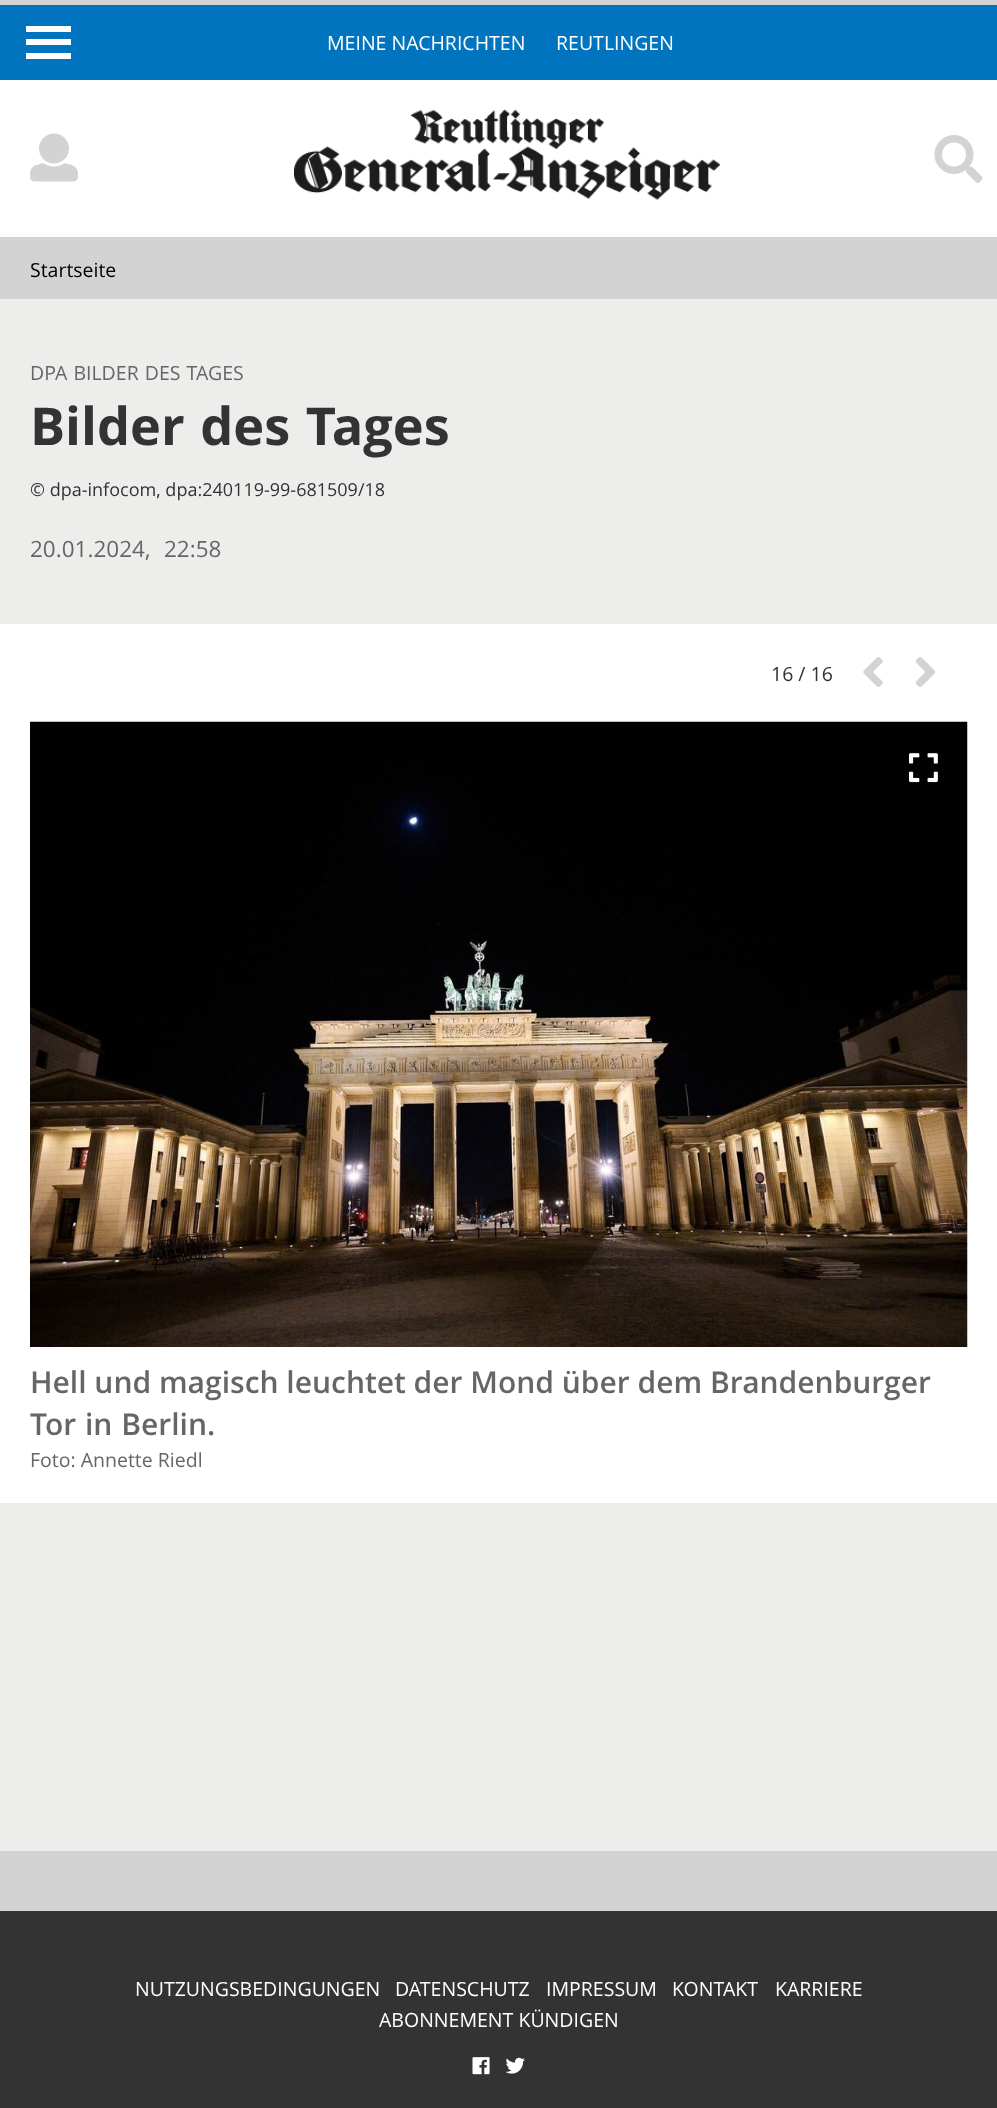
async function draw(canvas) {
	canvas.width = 997;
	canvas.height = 2108;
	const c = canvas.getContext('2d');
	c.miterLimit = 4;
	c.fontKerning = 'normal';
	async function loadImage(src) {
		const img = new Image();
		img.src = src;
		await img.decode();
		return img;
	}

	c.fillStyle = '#d3d3d4';
	c.fillRect(0, 0, 997, 2108);
	for (const [x, y, w, h, color] of [
		[0, 299, 997, 1552, '#ededec'],
		[0, 80, 997, 157, '#fff'],
		[0, 5, 997, 75, '#0074be'],
		[26, 39, 45, 6, '#fff'],
		[26, 26, 45, 6, '#fff'],
		[26, 53, 45, 6, '#fff'],
	]) {
		c.fillStyle = color;
		c.fillRect(x, y, w, h);
	}
	c.font = '19.5px Open Sans';
	c.fillText('MEINE NACHRICHTEN', 327, 50);
	c.fillText('REUTLINGEN', 556, 50);
	c.drawImage(await loadImage('img1.png'), 30, 133, 48, 49);
	c.drawImage(await loadImage('img2.png'), 294, 109, 426, 91);
	c.drawImage(await loadImage('img3.png'), 934, 135, 49, 48);
	c.fillStyle = '#000';
	c.fillText('Startseite', 30, 277);
	c.wordSpacing = '1px';
	c.fillStyle = '#666';
	c.fillText('DPA BILDER DES TAGES', 30, 380);
	c.wordSpacing = '2px';
	c.font = 'bold 52.25px Open Sans';
	c.fillStyle = '#333';
	c.fillText('Bilder des Tages', 30, 445);
	c.wordSpacing = '0px';
	c.font = '18px Open Sans';
	c.fillText('© dpa-infocom, dpa:240119-99-681509/18', 30, 496);
	c.font = '22.5px Open Sans';
	c.fillStyle = '#666';
	c.fillText('20.01.2024,', 30, 557);
	c.fillText('22:58', 164, 557);
	c.fillStyle = '#fff';
	c.fillRect(0, 624, 997, 879);
	c.font = '19.5px Open Sans';
	c.fillStyle = '#333';
	c.fillText('16 / 16', 771, 681);
	c.drawImage(await loadImage('img4.png'), 863, 657, 20, 30);
	c.drawImage(await loadImage('img5.png'), 915, 657, 20, 30);
	c.drawImage(await loadImage('img6.png'), 30, 721, 938, 626);
	c.drawImage(await loadImage('img7.png'), 909, 753, 29, 30);
	c.font = '600 30px Open Sans';
	c.fillStyle = '#666';
	c.fillText('Hell und magisch leuchtet der Mond über dem Brandenburger', 30, 1393);
	c.wordSpacing = '1px';
	c.fillText('Tor in Berlin.', 30, 1435);
	c.wordSpacing = '0px';
	c.font = '19.5px Open Sans';
	c.fillText('Foto: Annette Riedl', 30, 1467);
	c.fillStyle = '#333';
	c.fillRect(0, 1911, 997, 197);
	c.fillStyle = '#fff';
	for (const [text, x, y] of [
		['NUTZUNGSBEDINGUNGEN', 135, 1996],
		['DATENSCHUTZ', 395, 1996],
		['IMPRESSUM', 546, 1996],
		['KONTAKT', 672, 1996],
		['KARRIERE', 775, 1996],
		['ABONNEMENT KÜNDIGEN', 379, 2027],
	]) {
		c.fillText(text, x, y);
	}
	c.drawImage(await loadImage('img8.png'), 472, 2057, 18, 18);
	c.drawImage(await loadImage('img9.png'), 505, 2057, 20, 17);
}

draw(document.querySelector('canvas'));
